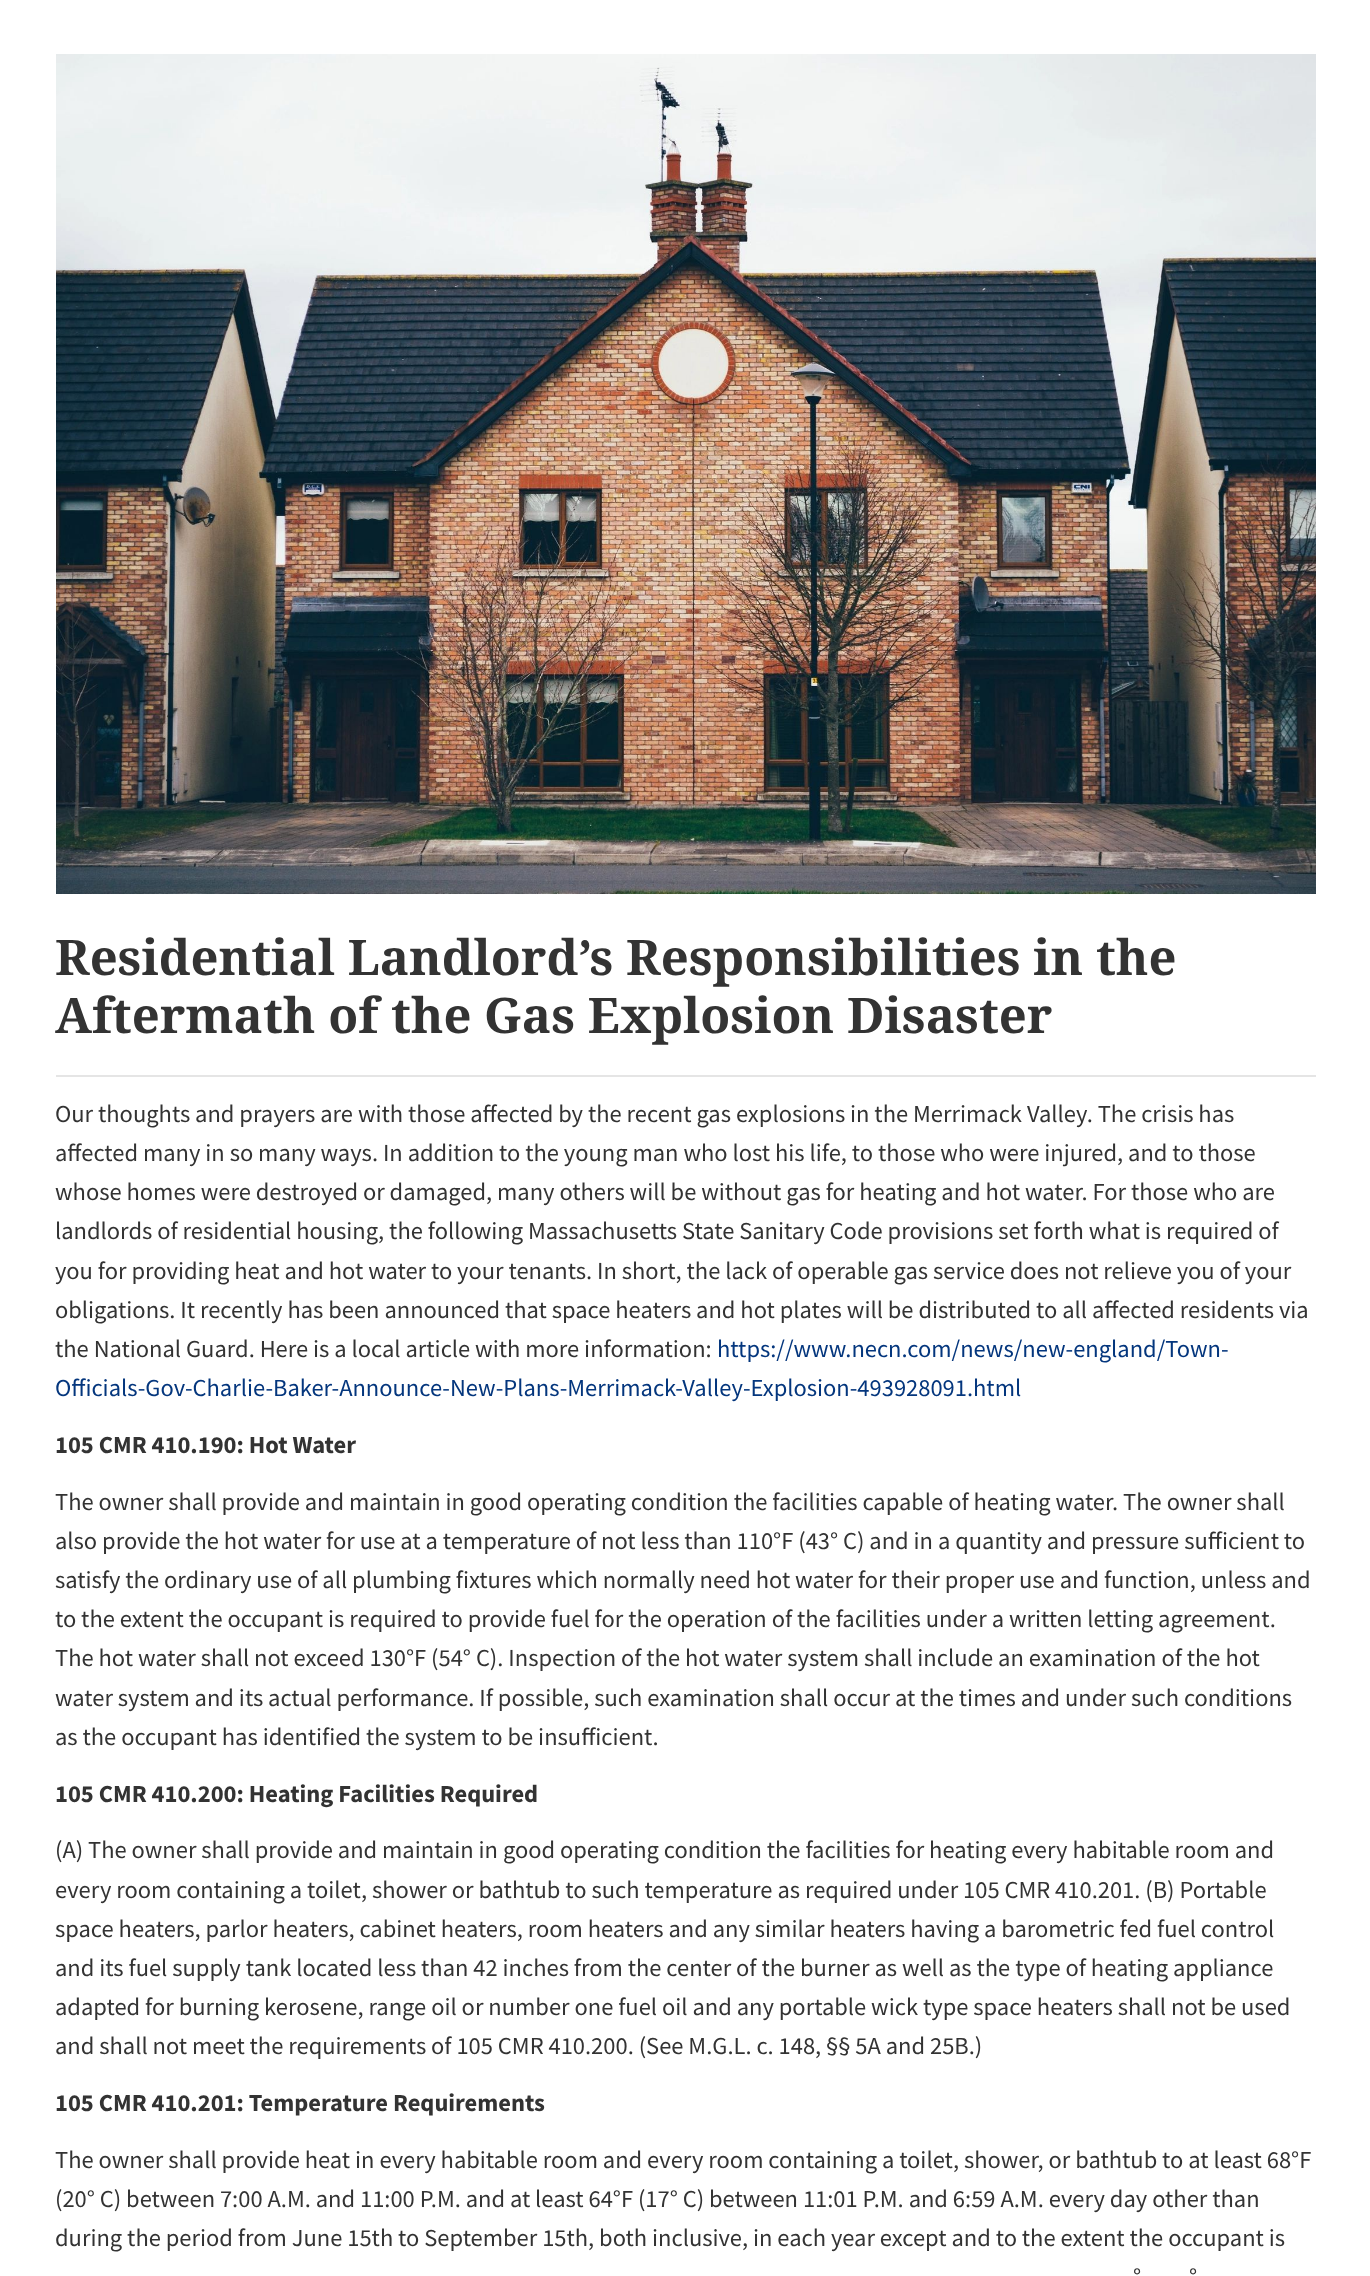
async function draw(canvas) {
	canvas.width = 1370;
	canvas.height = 2276;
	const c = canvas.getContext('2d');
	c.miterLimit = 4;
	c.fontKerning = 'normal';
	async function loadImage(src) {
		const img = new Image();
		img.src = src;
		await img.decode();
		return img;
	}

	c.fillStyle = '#fff';
	c.fillRect(0, 0, 1370, 2276);
	c.drawImage(await loadImage('img1.png'), 56, 54, 1260, 840);
	c.font = 'bold 49px Droid Serif';
	c.fillStyle = '#333';
	c.fillText('Residential Landlord’s Responsibilities in the', 55, 975);
	c.fillText('Aftermath of the Gas Explosion Disaster', 55, 1033);
	c.fillStyle = '#e5e5e5';
	c.fillRect(56, 1075, 1260, 2);
	c.font = '24.5px Source Sans Pro';
	c.fillStyle = '#333';
	for (const [text, x, y] of [
		['Our thoughts and prayers are with those affected by the recent gas explosions in the Merrimack Valley. The crisis has', 55, 1122],
		['affected many in so many ways. In addition to the young man who lost his life, to those who were injured, and to those', 55, 1161],
		['whose homes were destroyed or damaged, many others will be without gas for heating and hot water. For those who are', 55, 1200],
		['landlords of residential housing, the following Massachusetts State Sanitary Code provisions set forth what is required of', 55, 1239],
		['you for providing heat and hot water to your tenants. In short, the lack of operable gas service does not relieve you of your', 55, 1279],
		['obligations. It recently has been announced that space heaters and hot plates will be distributed to all affected residents via', 55, 1318],
		['the National Guard. Here is a local article with more information:', 55, 1357],
	]) {
		c.fillText(text, x, y);
	}
	c.fillStyle = '#04367d';
	c.fillText('https://www.necn.com/news/new-england/Town-', 717, 1357);
	c.fillText('Officials-Gov-Charlie-Baker-Announce-New-Plans-Merrimack-Valley-Explosion-493928091.html', 55, 1396);
	c.font = 'bold 24.5px Source Sans Pro';
	c.fillStyle = '#333';
	c.fillText('105 CMR 410.190: Hot Water', 55, 1453);
	c.font = '24.5px Source Sans Pro';
	for (const [text, x, y] of [
		['The owner shall provide and maintain in good operating condition the facilities capable of heating water. The owner shall', 55, 1510],
		['also provide the hot water for use at a temperature of not less than 110°F (43° C) and in a quantity and pressure sufficient to', 55, 1549],
		['satisfy the ordinary use of all plumbing fixtures which normally need hot water for their proper use and function, unless and', 55, 1588],
		['to the extent the occupant is required to provide fuel for the operation of the facilities under a written letting agreement.', 55, 1627],
		['The hot water shall not exceed 130°F (54° C). Inspection of the hot water system shall include an examination of the hot', 55, 1666],
		['water system and its actual performance. If possible, such examination shall occur at the times and under such conditions', 55, 1706],
		['as the occupant has identified the system to be insufficient.', 55, 1745],
	]) {
		c.fillText(text, x, y);
	}
	c.font = 'bold 24.5px Source Sans Pro';
	c.fillText('105 CMR 410.200: Heating Facilities Required', 55, 1802);
	c.font = '24.5px Source Sans Pro';
	for (const [text, x, y] of [
		['(A) The owner shall provide and maintain in good operating condition the facilities for heating every habitable room and', 55, 1858],
		['every room containing a toilet, shower or bathtub to such temperature as required under 105 CMR 410.201. (B) Portable', 55, 1898],
		['space heaters, parlor heaters, cabinet heaters, room heaters and any similar heaters having a barometric fed fuel control', 55, 1937],
		['and its fuel supply tank located less than 42 inches from the center of the burner as well as the type of heating appliance', 55, 1976],
		['adapted for burning kerosene, range oil or number one fuel oil and any portable wick type space heaters shall not be used', 55, 2015],
		['and shall not meet the requirements of 105 CMR 410.200. (See M.G.L. c. 148, §§ 5A and 25B.)', 55, 2054],
	]) {
		c.fillText(text, x, y);
	}
	c.font = 'bold 24.5px Source Sans Pro';
	c.fillText('105 CMR 410.201: Temperature Requirements', 55, 2111);
	c.font = '24.5px Source Sans Pro';
	for (const [text, x, y] of [
		['The owner shall provide heat in every habitable room and every room containing a toilet, shower, or bathtub to at least 68°F', 55, 2168],
		['(20° C) between 7:00 A.M. and 11:00 P.M. and at least 64°F (17° C) between 11:01 P.M. and 6:59 A.M. every day other than', 55, 2207],
		['during the period from June 15th to September 15th, both inclusive, in each year except and to the extent the occupant is', 55, 2246],
		['°', 1133, 2285],
		['°', 1189, 2285],
	]) {
		c.fillText(text, x, y);
	}
}

draw(document.querySelector('canvas'));
